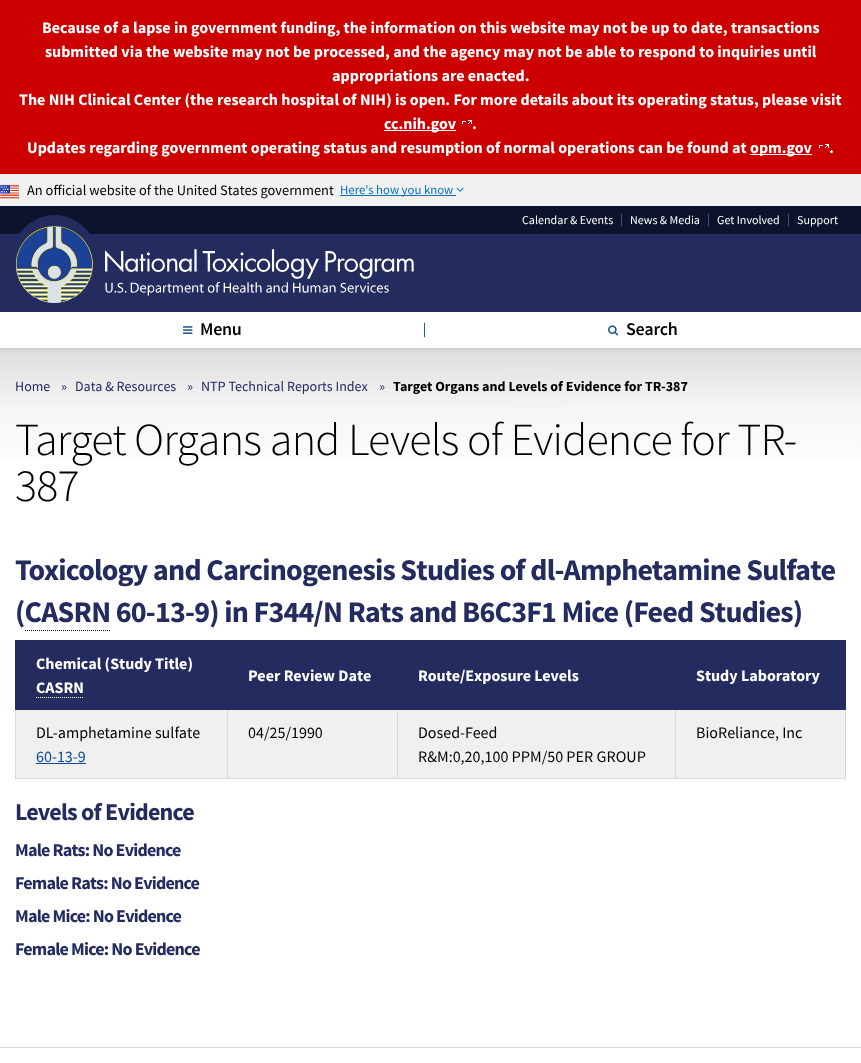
async function draw(canvas) {
	canvas.width = 861;
	canvas.height = 1063;
	const c = canvas.getContext('2d');
	c.miterLimit = 4;
	c.fontKerning = 'normal';
	async function loadImage(src) {
		const img = new Image();
		img.src = src;
		await img.decode();
		return img;
	}
	let gradient;

	c.fillStyle = '#fff';
	c.fillRect(0, 0, 861, 1063);
	gradient = c.createLinearGradient(430, 348, 431, 1032);
	gradient.addColorStop(0, '#ddd');
	gradient.addColorStop(0.09, '#f6f6f6');
	gradient.addColorStop(0.19, '#fff');
	c.fillStyle = gradient;
	c.fillRect(0, 348, 861, 112);
	c.fillStyle = '#00000014';
	c.filter = 'blur(2px)';
	c.beginPath();
	c.rect(-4, -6, 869, 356);
	c.fill();
	c.filter = 'none';
	c.fillStyle = '#cd0000';
	c.fillRect(0, 0, 861, 174);
	c.font = 'bold 16px Source Sans Pro';
	c.fillStyle = '#fff';
	for (const [text, x, y] of [
		['Because of a lapse in government funding, the information on this website may not be up to date, transactions', 42, 33],
		['submitted via the website may not be processed, and the agency may not be able to respond to inquiries until', 45, 57],
		['appropriations are enacted.', 332, 81],
		['The NIH Clinical Center (the research hospital of NIH) is open. For more details about its operating status, please visit', 19, 105],
	]) {
		c.fillText(text, x, y);
	}
	c.fillRect(384, 130, 72, 1);
	c.fillText('cc.nih.gov', 384, 129);
	c.drawImage(await loadImage('img1.png'), 462, 120, 10, 4);
	c.fillText('.', 472, 129);
	c.fillText('Updates regarding government operating status and resumption of normal operations can be found at', 27, 153);
	c.fillRect(750, 154, 62, 1);
	c.fillText('opm.gov', 750, 153);
	c.drawImage(await loadImage('img1.png'), 819, 144, 10, 4);
	c.fillText('.', 829, 153);
	c.fillStyle = '#f1f1f1';
	c.fillRect(0, 174, 861, 32);
	c.drawImage(await loadImage('img2.png'), 0, 184, 19, 15);
	c.font = '14.4px Source Sans Pro';
	c.fillStyle = '#000';
	c.fillText('An official website of the United States government', 27, 195);
	c.fillStyle = '#0071bc';
	c.fillRect(340, 195, 116, 1);
	c.font = '12.75px Source Sans Pro';
	c.fillText('Here\'s how you know', 340, 194);
	c.drawImage(await loadImage('img3.png'), 456, 187, 8, 5);
	c.fillStyle = '#232b5f';
	c.fillRect(0, 234, 861, 78);
	c.fillStyle = '#0e132d';
	c.fillRect(0, 206, 861, 28);
	c.fillStyle = '#232b5f';
	c.beginPath();
	c.ellipse(54.5, 266.5, 45.5, 51.5, 0, 0, 2 * Math.PI);
	c.fill();
	c.drawImage(await loadImage('img4.png'), 16, 226, 398, 77);
	c.font = '12px Source Sans Pro';
	c.fillStyle = '#fff';
	c.fillText('Calendar & Events', 522, 224);
	c.fillStyle = '#4a4e62';
	c.fillRect(621, 214, 1, 12);
	c.fillStyle = '#fff';
	c.fillText('News & Media', 630, 224);
	c.fillStyle = '#4a4e62';
	c.fillRect(708, 214, 1, 12);
	c.fillStyle = '#fff';
	c.fillText('Get Involved', 717, 224);
	c.fillStyle = '#4a4e62';
	c.fillRect(788, 214, 1, 12);
	c.fillStyle = '#fff';
	c.fillText('Support', 797, 224);
	c.fillRect(425, 312, 436, 36);
	gradient = c.createLinearGradient(213, 312, 213, 348);
	gradient.addColorStop(0, '#fff');
	gradient.addColorStop(0.29, '#fff');
	gradient.addColorStop(0.3, '#215f90');
	gradient.addColorStop(0.7, '#215f90');
	gradient.addColorStop(0.71, '#fff');
	c.fillStyle = gradient;
	c.fillRect(424, 312, 1, 36);
	c.fillStyle = '#fff';
	c.fillRect(0, 312, 424, 36);
	c.drawImage(await loadImage('img5.png'), 183, 326, 10, 8);
	c.letterSpacing = '-0.25px';
	c.font = '600 18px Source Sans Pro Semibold';
	c.fillStyle = '#000';
	c.fillText('Menu', 200, 335);
	c.drawImage(await loadImage('img6.png'), 608, 325, 11, 11);
	c.fillText('Search', 626, 335);
	c.letterSpacing = '0px';
	c.font = '14px Source Sans Pro';
	c.fillStyle = '#232b5f';
	for (const [text, x, y] of [
		['Home', 15, 391],
		['»', 61, 391],
		['Data & Resources', 75, 391],
		['»', 187, 391],
		['NTP Technical Reports Index', 201, 391],
		['»', 379, 391],
	]) {
		c.fillText(text, x, y);
	}
	c.font = 'bold 14px Source Sans Pro';
	c.fillStyle = '#000';
	c.fillText('Target Organs and Levels of Evidence for TR-387', 393, 391);
	c.letterSpacing = '-0.8px';
	c.font = '300 46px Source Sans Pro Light';
	c.fillText('Target Organs and Levels of Evidence for TR-', 15, 455);
	c.fillText('387', 15, 501);
	c.font = 'bold 30px Source Sans Pro';
	c.fillStyle = '#232b5f';
	c.fillText('Toxicology and Carcinogenesis Studies of dl-Amphetamine Sulfate', 15, 580);
	c.fillText('(CASRN 60-13-9) in F344/N Rats and B6C3F1 Mice (Feed Studies)', 15, 622);
	c.beginPath();
	c.moveTo(25, 630.5);
	c.lineTo(110, 630.5);
	c.strokeStyle = '#000';
	c.setLineDash([1, 1]);
	c.stroke();
	for (const [x, y, w, h, color] of [
		[15, 640, 831, 1, '#232b5f'],
		[845, 709, 1, 70, '#d9d9d9'],
		[675, 778, 171, 1, '#d9d9d9'],
		[16, 710, 829, 68, '#f0f0f0'],
		[675, 709, 1, 70, '#d9d9d9'],
		[397, 778, 279, 1, '#d9d9d9'],
		[397, 709, 1, 70, '#d9d9d9'],
		[227, 778, 171, 1, '#d9d9d9'],
		[227, 709, 1, 70, '#d9d9d9'],
		[15, 778, 213, 1, '#d9d9d9'],
		[15, 709, 1, 70, '#d9d9d9'],
		[15, 640, 1, 70, '#232b5f'],
		[16, 641, 830, 69, '#232b5f'],
	]) {
		c.fillStyle = color;
		c.fillRect(x, y, w, h);
	}
	c.letterSpacing = '0px';
	c.font = 'bold 16px Source Sans Pro';
	c.fillStyle = '#fff';
	c.fillText('Chemical (Study Title)', 36, 669);
	c.fillText('CASRN', 36, 693);
	c.beginPath();
	c.moveTo(36, 697.5);
	c.lineTo(84, 697.5);
	c.strokeStyle = '#fff';
	c.stroke();
	for (const [text, x, y] of [
		['Peer Review Date', 248, 681],
		['Route/Exposure Levels', 418, 681],
		['Study Laboratory', 696, 681],
	]) {
		c.fillText(text, x, y);
	}
	c.font = '16px Source Sans Pro';
	c.fillStyle = '#000';
	c.fillText('DL-amphetamine sulfate', 36, 738);
	c.fillStyle = '#0b4898';
	c.fillText('60-13-9', 36, 762);
	c.fillRect(36, 763, 50, 1);
	c.fillStyle = '#000';
	for (const [text, x, y] of [
		['04/25/1990', 248, 738],
		['Dosed-Feed', 418, 738],
		['R&M:0,20,100 PPM/50 PER GROUP', 418, 762],
		['BioReliance, Inc', 696, 738],
	]) {
		c.fillText(text, x, y);
	}
	c.letterSpacing = '-0.8px';
	c.font = 'bold 24px Source Sans Pro';
	c.fillStyle = '#232b5f';
	c.fillText('Levels of Evidence', 15, 820);
	c.font = 'bold 18px Source Sans Pro';
	for (const [text, x, y] of [
		['Male Rats: No Evidence', 15, 856],
		['Female Rats: No Evidence', 15, 889],
		['Male Mice: No Evidence', 15, 922],
		['Female Mice: No Evidence', 15, 955],
	]) {
		c.fillText(text, x, y);
	}
	c.fillStyle = '#d9d9d9';
	c.fillRect(0, 1047, 861, 1);
}

draw(document.querySelector('canvas'));
